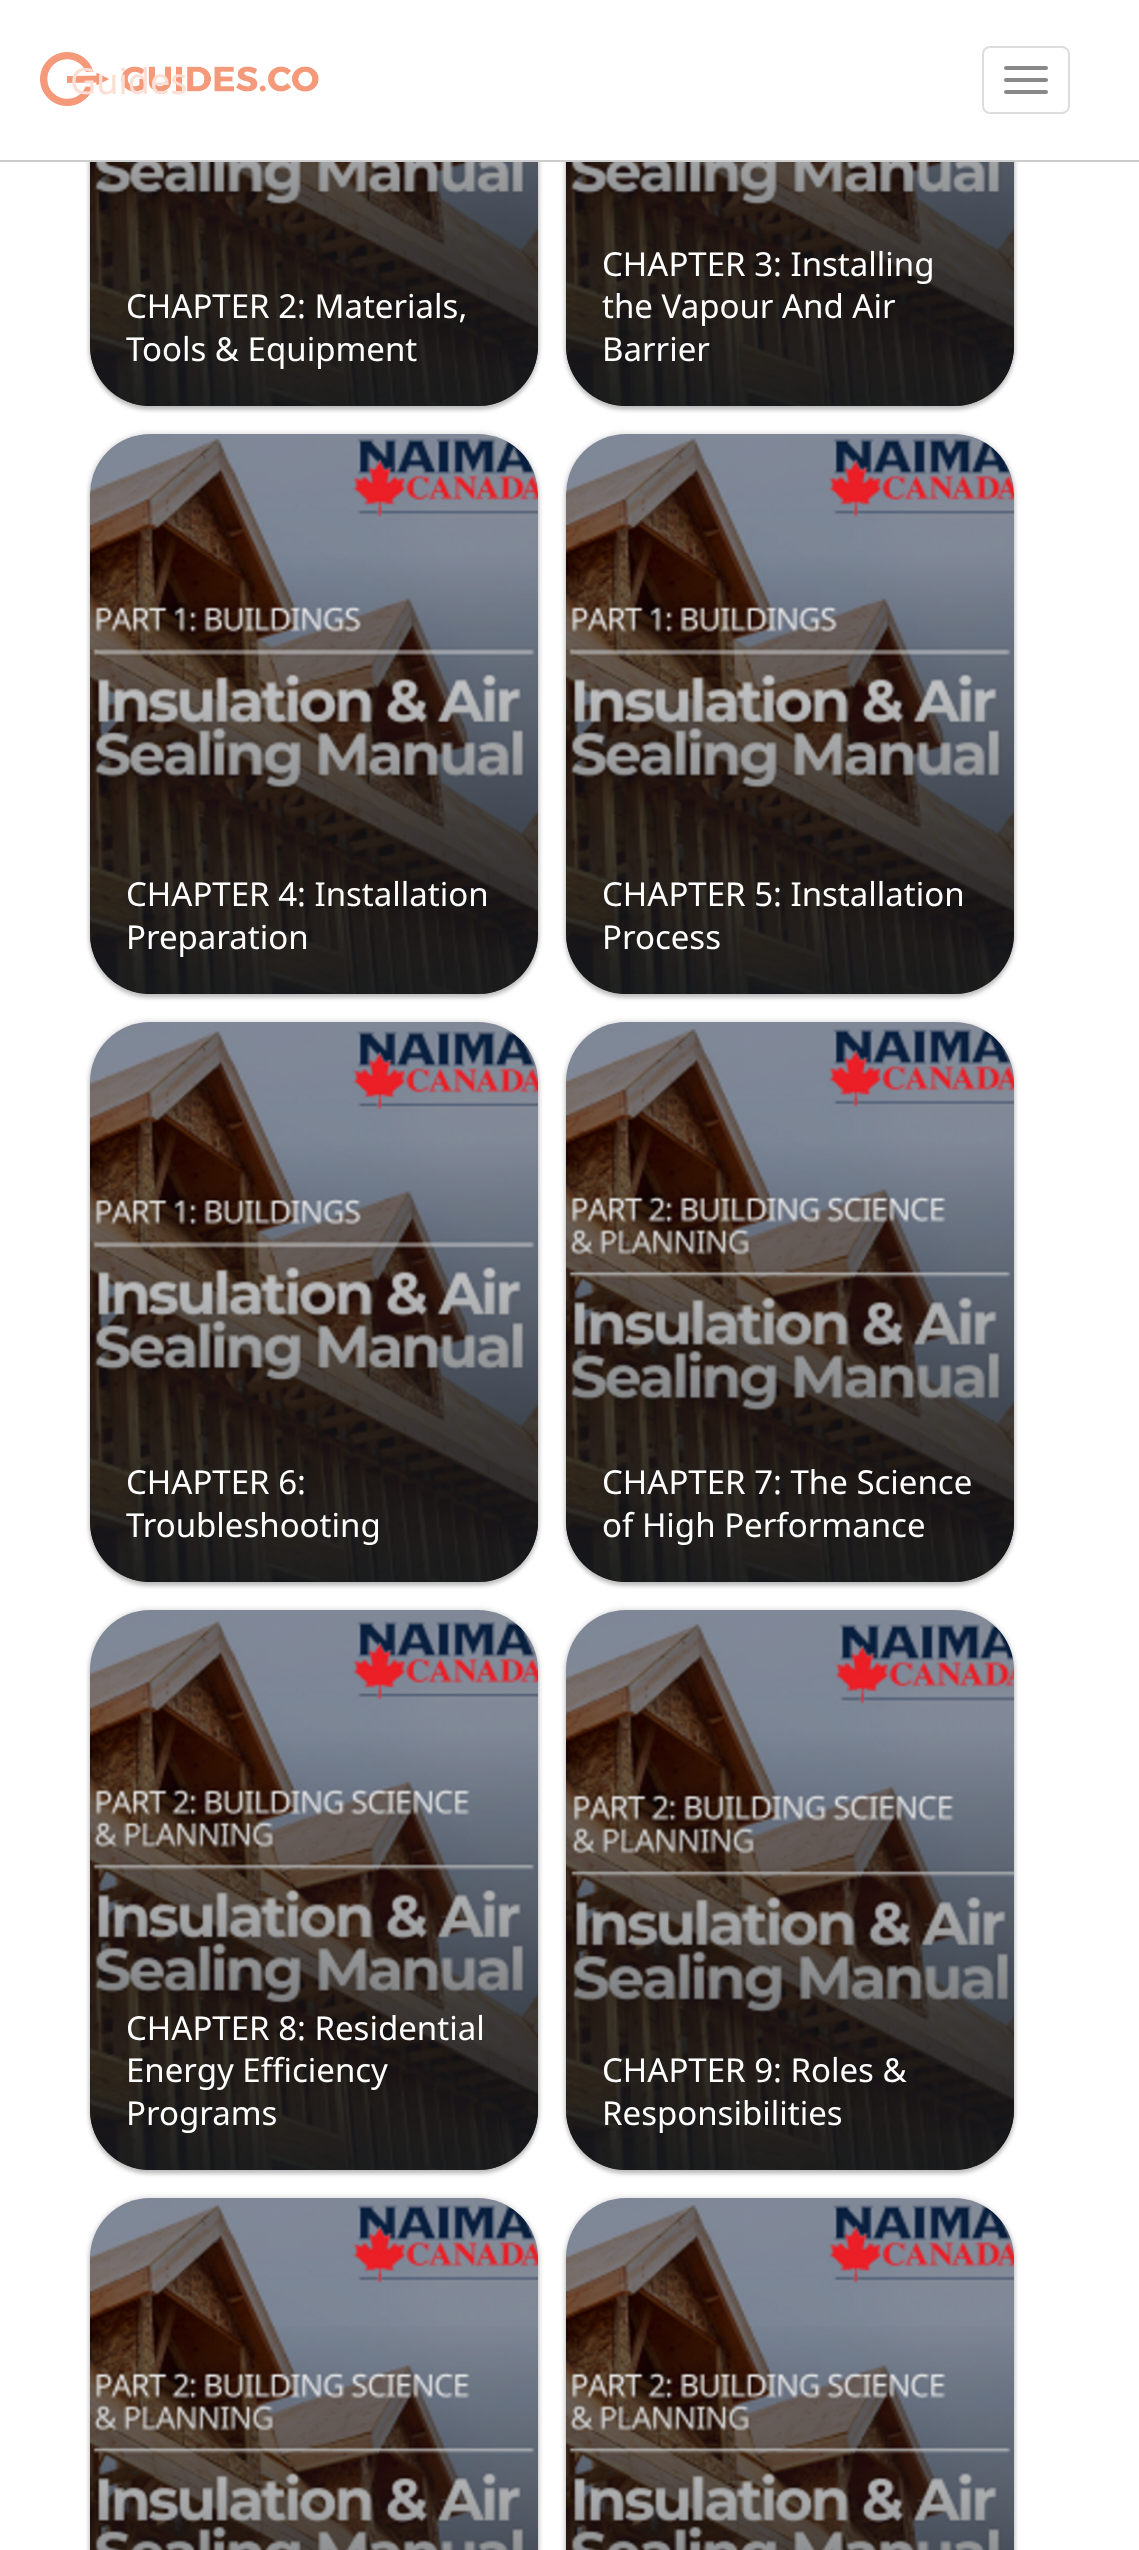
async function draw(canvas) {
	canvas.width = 1139;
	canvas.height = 2550;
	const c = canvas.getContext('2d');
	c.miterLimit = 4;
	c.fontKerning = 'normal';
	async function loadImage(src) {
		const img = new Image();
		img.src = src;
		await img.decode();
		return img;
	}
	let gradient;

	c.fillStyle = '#fff';
	c.fillRect(0, 0, 1139, 2550);
	c.fillStyle = '#00000033';
	c.filter = 'blur(2px)';
	c.beginPath();
	c.roundRect(90, -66, 448, 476, 60);
	c.fill();
	c.filter = 'none';
	c.fillStyle = '#0000001a';
	c.filter = 'blur(2px)';
	c.beginPath();
	c.roundRect(88, -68, 452, 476, 62);
	c.fill();
	c.filter = 'none';
	c.drawImage(await loadImage('img2.png'), 90, 162, 448, 244);
	gradient = c.createLinearGradient(314, 406, 314, -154);
	gradient.addColorStop(0, '#161a1ee6');
	gradient.addColorStop(0.79, '#161a1e00');
	c.fillStyle = gradient;
	c.beginPath();
	c.roundRect(90, -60, 448, 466, 60);
	c.fill();
	c.fillStyle = '#00000033';
	c.filter = 'blur(2px)';
	c.beginPath();
	c.roundRect(566, -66, 448, 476, 60);
	c.fill();
	c.filter = 'none';
	c.fillStyle = '#0000001a';
	c.filter = 'blur(2px)';
	c.beginPath();
	c.roundRect(564, -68, 452, 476, 62);
	c.fill();
	c.filter = 'none';
	c.drawImage(await loadImage('img3.png'), 566, 162, 448, 244);
	gradient = c.createLinearGradient(790, 406, 790, -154);
	gradient.addColorStop(0, '#161a1ee6');
	gradient.addColorStop(0.79, '#161a1e00');
	c.fillStyle = gradient;
	c.beginPath();
	c.roundRect(566, -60, 448, 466, 60);
	c.fill();
	c.fillStyle = '#fff';
	c.fillRect(85, 0, 934, 160);
	c.fillStyle = '#ccc';
	c.fillRect(0, 160, 1139, 2);
	c.drawImage(await loadImage('img1.png'), 40, 52, 279, 54);
	c.font = '36px Noto Sans';
	c.fillStyle = '#fbded4';
	c.fillText('Guides', 70, 94);
	c.beginPath();
	c.roundRect(983, 47, 86, 66, 7);
	c.strokeStyle = '#ddd';
	c.lineWidth = 2;
	c.stroke();
	c.fillStyle = '#888';
	c.beginPath();
	c.roundRect(1004, 66, 44, 4, 2);
	c.fill();
	c.beginPath();
	c.roundRect(1004, 78, 44, 4, 2);
	c.fill();
	c.beginPath();
	c.roundRect(1004, 90, 44, 4, 2);
	c.fill();
	c.font = '33px Noto Sans';
	c.fillStyle = '#fff';
	for (const [text, x, y] of [
		['CHAPTER 2: Materials,', 126, 318],
		['Tools & Equipment', 126, 361],
		['CHAPTER 3: Installing', 602, 276],
		['the Vapour And Air', 602, 318],
		['Barrier', 602, 361],
	]) {
		c.fillText(text, x, y);
	}
	c.fillStyle = '#00000033';
	c.filter = 'blur(2px)';
	c.beginPath();
	c.roundRect(90, 438, 448, 560, 60);
	c.fill();
	c.filter = 'none';
	c.fillStyle = '#0000001a';
	c.filter = 'blur(2px)';
	c.beginPath();
	c.roundRect(88, 432, 452, 564, 62);
	c.fill();
	c.filter = 'none';
	c.fillStyle = '#fff';
	c.beginPath();
	c.roundRect(90, 434, 448, 560, 60);
	c.fill();
	c.drawImage(await loadImage('img4.png'), 90, 434, 448, 560);
	gradient = c.createLinearGradient(314, 994, 314, 434);
	gradient.addColorStop(0, '#161a1ee6');
	gradient.addColorStop(0.79, '#161a1e00');
	c.fillStyle = gradient;
	c.beginPath();
	c.roundRect(90, 434, 448, 560, 60);
	c.fill();
	c.fillStyle = '#fff';
	c.fillText('CHAPTER 4: Installation', 126, 906);
	c.fillText('Preparation', 126, 949);
	c.fillStyle = '#00000033';
	c.filter = 'blur(2px)';
	c.beginPath();
	c.roundRect(566, 438, 448, 560, 60);
	c.fill();
	c.filter = 'none';
	c.fillStyle = '#0000001a';
	c.filter = 'blur(2px)';
	c.beginPath();
	c.roundRect(564, 432, 452, 564, 62);
	c.fill();
	c.filter = 'none';
	c.fillStyle = '#fff';
	c.beginPath();
	c.roundRect(566, 434, 448, 560, 60);
	c.fill();
	c.drawImage(await loadImage('img5.png'), 566, 434, 448, 560);
	gradient = c.createLinearGradient(790, 994, 790, 434);
	gradient.addColorStop(0, '#161a1ee6');
	gradient.addColorStop(0.79, '#161a1e00');
	c.fillStyle = gradient;
	c.beginPath();
	c.roundRect(566, 434, 448, 560, 60);
	c.fill();
	c.fillStyle = '#fff';
	c.fillText('CHAPTER 5: Installation', 602, 906);
	c.fillText('Process', 602, 949);
	c.fillStyle = '#00000033';
	c.filter = 'blur(2px)';
	c.beginPath();
	c.roundRect(90, 1026, 448, 560, 60);
	c.fill();
	c.filter = 'none';
	c.fillStyle = '#0000001a';
	c.filter = 'blur(2px)';
	c.beginPath();
	c.roundRect(88, 1020, 452, 564, 62);
	c.fill();
	c.filter = 'none';
	c.drawImage(await loadImage('img6.png'), 90, 1022, 448, 560);
	gradient = c.createLinearGradient(314, 1582, 314, 1022);
	gradient.addColorStop(0, '#161a1ee6');
	gradient.addColorStop(0.79, '#161a1e00');
	c.fillStyle = gradient;
	c.beginPath();
	c.roundRect(90, 1022, 448, 560, 60);
	c.fill();
	c.fillStyle = '#fff';
	c.fillText('CHAPTER 6:', 126, 1494);
	c.fillText('Troubleshooting', 126, 1537);
	c.fillStyle = '#00000033';
	c.filter = 'blur(2px)';
	c.beginPath();
	c.roundRect(566, 1026, 448, 560, 60);
	c.fill();
	c.filter = 'none';
	c.fillStyle = '#0000001a';
	c.filter = 'blur(2px)';
	c.beginPath();
	c.roundRect(564, 1020, 452, 564, 62);
	c.fill();
	c.filter = 'none';
	c.drawImage(await loadImage('img7.png'), 566, 1022, 448, 560);
	gradient = c.createLinearGradient(790, 1582, 790, 1022);
	gradient.addColorStop(0, '#161a1ee6');
	gradient.addColorStop(0.79, '#161a1e00');
	c.fillStyle = gradient;
	c.beginPath();
	c.roundRect(566, 1022, 448, 560, 60);
	c.fill();
	c.fillStyle = '#fff';
	c.fillText('CHAPTER 7: The Science', 602, 1494);
	c.fillText('of High Performance', 602, 1537);
	c.fillStyle = '#00000033';
	c.filter = 'blur(2px)';
	c.beginPath();
	c.roundRect(90, 1614, 448, 560, 60);
	c.fill();
	c.filter = 'none';
	c.fillStyle = '#0000001a';
	c.filter = 'blur(2px)';
	c.beginPath();
	c.roundRect(88, 1608, 452, 564, 62);
	c.fill();
	c.filter = 'none';
	c.drawImage(await loadImage('img8.png'), 90, 1610, 448, 560);
	gradient = c.createLinearGradient(314, 2170, 314, 1610);
	gradient.addColorStop(0, '#161a1ee6');
	gradient.addColorStop(0.79, '#161a1e00');
	c.fillStyle = gradient;
	c.beginPath();
	c.roundRect(90, 1610, 448, 560, 60);
	c.fill();
	c.fillStyle = '#fff';
	for (const [text, x, y] of [
		['CHAPTER 8: Residential', 126, 2040],
		['Energy Efficiency', 126, 2082],
		['Programs', 126, 2125],
	]) {
		c.fillText(text, x, y);
	}
	c.fillStyle = '#00000033';
	c.filter = 'blur(2px)';
	c.beginPath();
	c.roundRect(566, 1614, 448, 560, 60);
	c.fill();
	c.filter = 'none';
	c.fillStyle = '#0000001a';
	c.filter = 'blur(2px)';
	c.beginPath();
	c.roundRect(564, 1608, 452, 564, 62);
	c.fill();
	c.filter = 'none';
	c.drawImage(await loadImage('img9.png'), 566, 1610, 448, 560);
	gradient = c.createLinearGradient(790, 2170, 790, 1610);
	gradient.addColorStop(0, '#161a1ee6');
	gradient.addColorStop(0.79, '#161a1e00');
	c.fillStyle = gradient;
	c.beginPath();
	c.roundRect(566, 1610, 448, 560, 60);
	c.fill();
	c.fillStyle = '#fff';
	c.fillText('CHAPTER 9: Roles &', 602, 2082);
	c.fillText('Responsibilities', 602, 2125);
	c.fillStyle = '#00000033';
	c.filter = 'blur(2px)';
	c.beginPath();
	c.roundRect(90, 2202, 448, 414, 60);
	c.fill();
	c.filter = 'none';
	c.fillStyle = '#0000001a';
	c.filter = 'blur(2px)';
	c.beginPath();
	c.roundRect(88, 2196, 452, 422, 62);
	c.fill();
	c.filter = 'none';
	c.drawImage(await loadImage('img10.png'), 90, 2198, 448, 352);
	gradient = c.createLinearGradient(314, 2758, 314, 2198);
	gradient.addColorStop(0, '#161a1ee6');
	gradient.addColorStop(0.79, '#161a1e00');
	c.fillStyle = gradient;
	c.fillRect(90, 2326, 448, 224);
	c.fillStyle = '#00000033';
	c.filter = 'blur(2px)';
	c.beginPath();
	c.roundRect(566, 2202, 448, 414, 60);
	c.fill();
	c.filter = 'none';
	c.fillStyle = '#0000001a';
	c.filter = 'blur(2px)';
	c.beginPath();
	c.roundRect(564, 2196, 452, 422, 62);
	c.fill();
	c.filter = 'none';
	c.drawImage(await loadImage('img11.png'), 566, 2198, 448, 352);
	gradient = c.createLinearGradient(790, 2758, 790, 2198);
	gradient.addColorStop(0, '#161a1ee6');
	gradient.addColorStop(0.79, '#161a1e00');
	c.fillStyle = gradient;
	c.fillRect(566, 2326, 448, 224);
}

draw(document.querySelector('canvas'));
